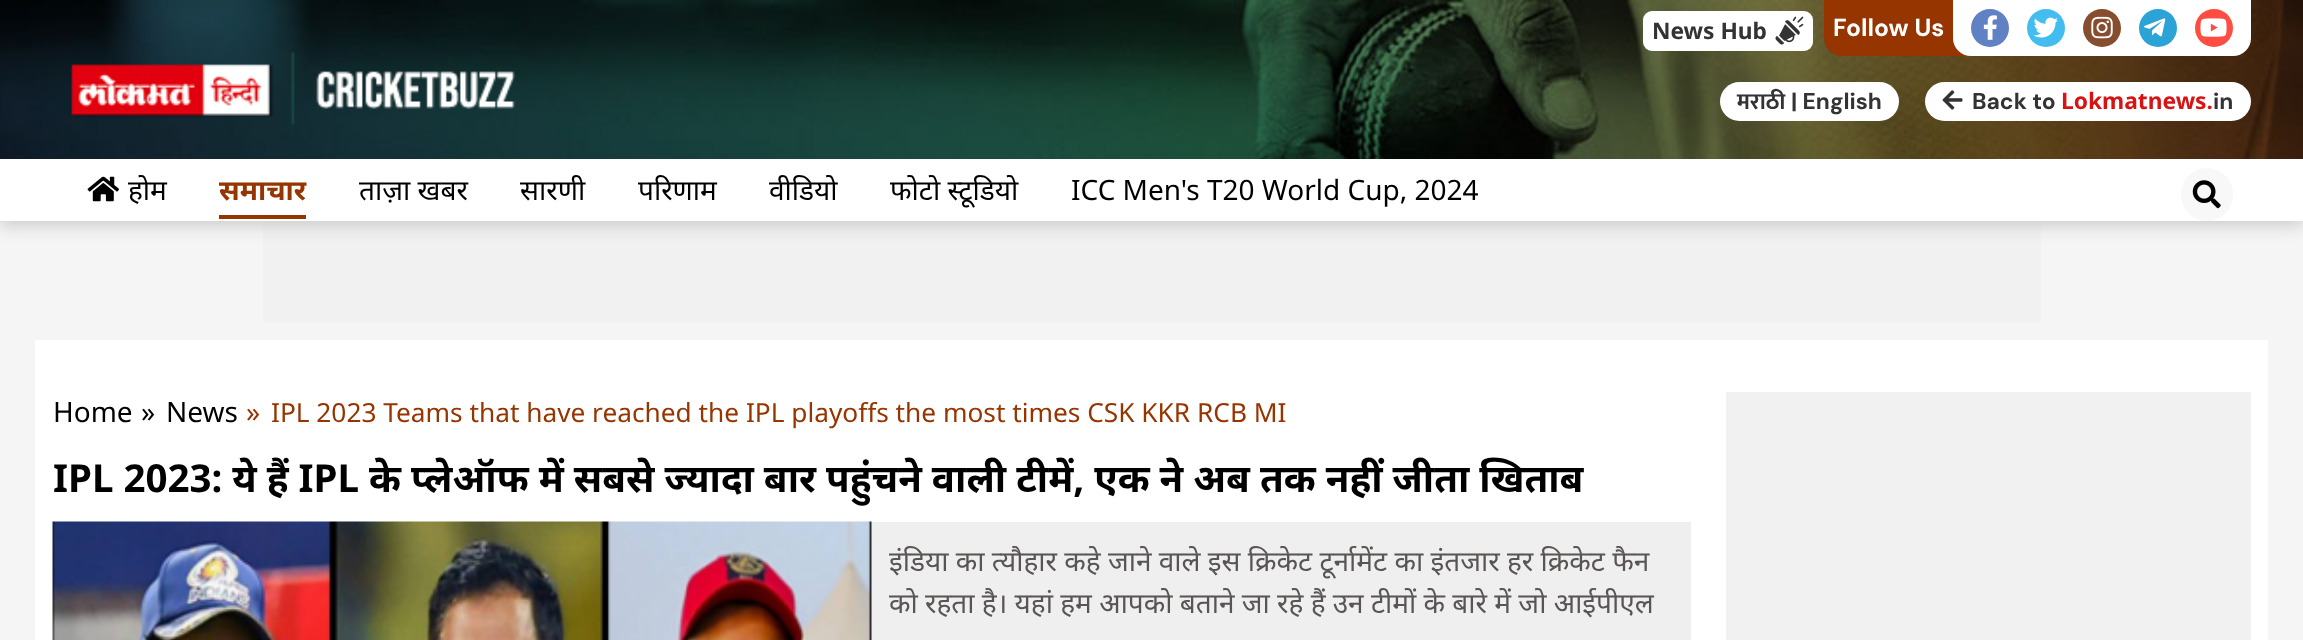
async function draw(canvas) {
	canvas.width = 2303;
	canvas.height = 640;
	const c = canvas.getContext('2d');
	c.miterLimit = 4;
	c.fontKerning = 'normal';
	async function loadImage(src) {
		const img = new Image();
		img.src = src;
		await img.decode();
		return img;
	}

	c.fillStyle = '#f5f5f5';
	c.fillRect(0, 0, 2303, 640);
	c.fillStyle = '#f1f1f1';
	c.fillRect(263, 221, 1778, 101);
	c.fillStyle = '#ccc';
	c.filter = 'blur(8px)';
	c.beginPath();
	c.rect(0, 165, 2303, 61);
	c.fill();
	c.filter = 'none';
	c.drawImage(await loadImage('img1.png'), 0, 0, 2303, 159);
	c.drawImage(await loadImage('img2.png'), 71, 52, 444, 73);
	c.fillStyle = '#fff';
	c.beginPath();
	c.roundRect(1643, 11, 170, 40, 9);
	c.fill();
	c.font = 'bold 22.75px Noto Sans';
	c.fillStyle = '#333';
	c.fillText('News Hub', 1652, 39);
	c.drawImage(await loadImage('img3.png'), 1775, 16, 29, 29);
	c.fillStyle = '#963500';
	c.beginPath();
	c.roundRect(1824, 0, 427, 56, [0, 0, 18, 18]);
	c.fill();
	c.font = 'bold 24.5px DM Sans';
	c.fillStyle = '#fff';
	c.fillText('Follow Us', 1833, 36);
	c.beginPath();
	c.roundRect(1953, 0, 298, 56, [0, 0, 18, 18]);
	c.fill();
	c.fillStyle = '#6081c4';
	c.beginPath();
	c.arc(1990, 28, 19, 0, 2 * Math.PI);
	c.fill();
	c.drawImage(await loadImage('img4.png'), 1983, 15, 14, 25);
	c.fillStyle = '#43bdf0';
	c.beginPath();
	c.arc(2046, 28, 19, 0, 2 * Math.PI);
	c.fill();
	c.drawImage(await loadImage('img5.png'), 2033, 17, 25, 21);
	c.fillStyle = '#874d2f';
	c.beginPath();
	c.arc(2102, 28, 19, 0, 2 * Math.PI);
	c.fill();
	c.drawImage(await loadImage('img6.png'), 2091, 16, 22, 23);
	c.fillStyle = '#2ca3d6';
	c.beginPath();
	c.arc(2158, 28, 19, 0, 2 * Math.PI);
	c.fill();
	c.drawImage(await loadImage('img7.png'), 2143, 18, 23, 19);
	c.fillStyle = '#ff4d43';
	c.beginPath();
	c.arc(2214, 28, 19, 0, 2 * Math.PI);
	c.fill();
	c.drawImage(await loadImage('img8.png'), 2200, 18, 27, 19);
	c.fillStyle = '#fff';
	c.beginPath();
	c.roundRect(1720, 82, 179, 39, 19.5);
	c.fill();
	c.font = 'bold 22.75px Mukta';
	c.fillStyle = '#333';
	c.fillText('मराठी', 1737, 109);
	c.font = 'bold 22.75px DM Sans';
	c.fillText('| English', 1791, 109);
	c.fillStyle = '#fff';
	c.beginPath();
	c.roundRect(1925, 82, 326, 39, 19.5);
	c.fill();
	c.drawImage(await loadImage('img9.png'), 1942, 90, 21, 20);
	c.fillStyle = '#333';
	c.fillText('Back to', 1972, 109);
	c.font = 'bold 22.75px Noto Sans';
	c.fillStyle = '#d61414';
	c.fillText('Lokmatnews.', 2061, 109);
	c.font = 'bold 22.75px DM Sans';
	c.fillStyle = '#333';
	c.fillText('in', 2213, 109);
	c.fillStyle = '#fff';
	c.fillRect(0, 159, 2303, 62);
	c.drawImage(await loadImage('img10.png'), 87, 176, 32, 26);
	c.font = '28px Noto Sans';
	c.fillStyle = '#000';
	c.fillText('होम', 128, 200);
	c.fillStyle = '#963500';
	c.fillRect(219, 215, 87, 4);
	c.font = 'bold 28px Noto Sans';
	c.fillText('समाचार', 219, 200);
	c.font = '28px Noto Sans';
	c.fillStyle = '#000';
	for (const [text, x, y] of [
		['ताज़ा खबर', 359, 200],
		['सारणी', 520, 200],
		['परिणाम', 638, 200],
		['वीडियो', 769, 200],
		['फोटो स्टूडियो', 890, 200],
		['ICC Men\'s T20 World Cup, 2024', 1071, 200],
	]) {
		c.fillText(text, x, y);
	}
	c.fillStyle = '#f8f8f8';
	c.beginPath();
	c.roundRect(2181, 168, 52, 53, 26);
	c.fill();
	c.drawImage(await loadImage('img11.png'), 2192, 180, 29, 29);
	c.fillStyle = '#fff';
	c.fillRect(35, 340, 2233, 300);
	c.fillStyle = '#000';
	for (const [text, x, y] of [
		['Home', 53, 422],
		['»', 141, 422],
		['News', 166, 422],
	]) {
		c.fillText(text, x, y);
	}
	c.fillStyle = '#963500';
	c.fillText('»', 246, 422);
	c.font = '26.25px Noto Sans';
	c.fillText('IPL 2023 Teams that have reached the IPL playoffs the most times CSK KKR RCB MI', 271, 422);
	c.font = 'bold 38.5px Noto Sans';
	c.fillStyle = '#000';
	c.fillText('IPL 2023: ये हैं IPL के प्लेऑफ में सबसे ज्यादा बार पहुंचने वाली टीमें, एक ने अब तक नहीं जीता खिताब', 53, 492);
	c.fillStyle = '#efefef';
	c.fillRect(871, 522, 820, 118);
	c.drawImage(await loadImage('img12.png'), 52, 521, 820, 119);
	c.font = '28px Noto Sans';
	c.fillStyle = '#5a5555';
	c.fillText('इंडिया का त्यौहार कहे जाने वाले इस क्रिकेट टूर्नामेंट का इंतजार हर क्रिकेट फैन', 889, 571);
	c.fillText('को रहता है। यहां हम आपको बताने जा रहे हैं उन टीमों के बारे में जो आईपीएल', 889, 613);
	c.fillStyle = '#f1f1f1';
	c.fillRect(1726, 392, 525, 248);
}

draw(document.querySelector('canvas'));
